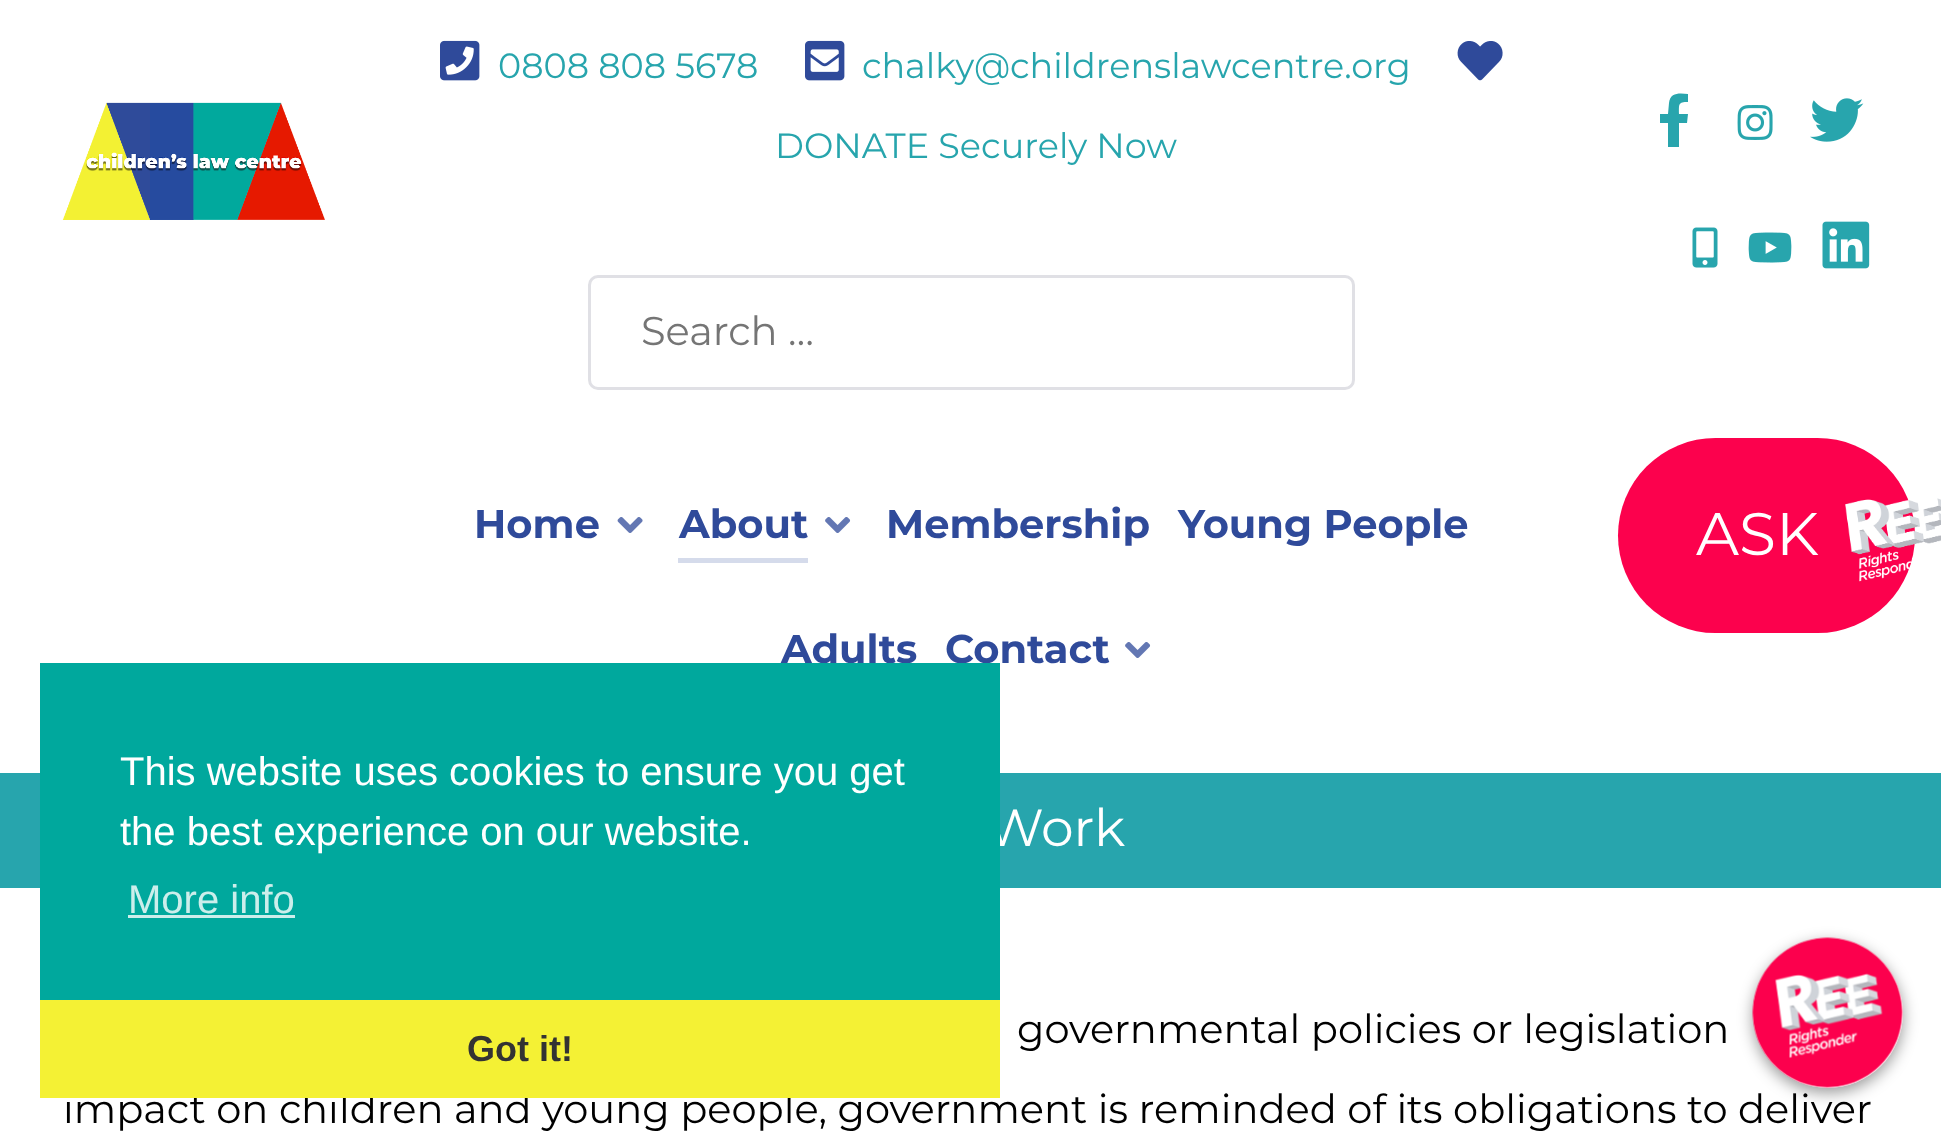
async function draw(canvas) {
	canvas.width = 1941;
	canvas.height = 1137;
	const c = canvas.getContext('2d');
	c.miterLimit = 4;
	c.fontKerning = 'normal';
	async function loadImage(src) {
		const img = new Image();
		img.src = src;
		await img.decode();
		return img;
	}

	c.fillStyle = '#fff';
	c.fillRect(0, 0, 1941, 1137);
	c.drawImage(await loadImage('img1.png'), 62, 102, 263, 118);
	c.drawImage(await loadImage('img2.png'), 440, 40, 40, 41);
	c.font = '100 35px Montserrat';
	c.fillStyle = '#27a5ad';
	c.fillText('0808 808 5678', 498, 78);
	c.drawImage(await loadImage('img3.png'), 805, 40, 40, 41);
	c.fillText('chalky@childrenslawcentre.org', 862, 78);
	c.drawImage(await loadImage('img4.png'), 1457, 41, 46, 40);
	c.fillText('DONATE Securely Now', 775, 158);
	c.beginPath();
	c.roundRect(589.5, 276.5, 764, 112, 8.5);
	c.strokeStyle = '#e0e0e5';
	c.lineWidth = 3;
	c.stroke();
	c.font = '100 40px Montserrat';
	c.fillStyle = '#757575';
	c.fillText('Search …', 641, 345);
	c.font = '100 40px "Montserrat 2"';
	c.fillStyle = '#2f4a9a';
	c.fillText('Home', 474, 538);
	c.drawImage(await loadImage('img5.png'), 617, 517, 26, 16);
	c.fillStyle = '#d5dbeb';
	c.beginPath();
	c.moveTo(678, 558);
	c.lineTo(678, 563);
	c.lineTo(808, 563);
	c.lineTo(808, 505);
	c.lineTo(808, 558);
	c.closePath();
	c.fill();
	c.fillStyle = '#2f4a9a';
	c.fillText('About', 679, 538);
	c.drawImage(await loadImage('img6.png'), 825, 517, 26, 16);
	for (const [text, x, y] of [
		['Membership', 886, 538],
		['Young People', 1178, 538],
		['Adults', 781, 663],
		['Contact', 945, 663],
	]) {
		c.fillText(text, x, y);
	}
	c.drawImage(await loadImage('img6.png'), 1125, 642, 26, 16);
	c.fillStyle = '#28a5ad';
	c.beginPath();
	c.moveTo(1687, 123);
	c.lineTo(1679, 123);
	c.lineTo(1679, 147);
	c.lineTo(1668, 147);
	c.lineTo(1668, 123);
	c.lineTo(1660, 123);
	c.lineTo(1660, 114);
	c.lineTo(1668, 114);
	c.lineTo(1669, 103);
	c.bezierCurveTo(1670, 92, 1680, 93, 1688, 94);
	c.lineTo(1688, 102);
	c.bezierCurveTo(1678, 102, 1679, 104, 1679, 114);
	c.lineTo(1688, 114);
	c.closePath();
	c.fill();
	c.drawImage(await loadImage('img7.png'), 1737, 105, 36, 35);
	c.drawImage(await loadImage('img8.png'), 1810, 98, 54, 44);
	c.drawImage(await loadImage('img9.png'), 1692, 227, 26, 41);
	c.drawImage(await loadImage('img10.png'), 1748, 232, 44, 31);
	c.drawImage(await loadImage('img11.png'), 1822, 221, 48, 48);
	c.fillStyle = '#fc014d';
	c.beginPath();
	c.roundRect(1618, 438, 297, 195, 97.5);
	c.fill();
	c.font = '100 60px Montserrat';
	c.fillStyle = '#fff';
	c.fillText('ASK', 1696, 555);
	c.drawImage(await loadImage('img12.png'), 1845, 498, 96, 84);
	c.fillStyle = '#27a5ad';
	c.fillRect(0, 773, 1941, 115);
	c.font = '100 52px Montserrat';
	c.fillStyle = '#fff';
	c.fillText('Work', 986, 846);
	c.font = '100 40px Montserrat';
	c.fillStyle = '#000';
	c.fillText('governmental policies or legislation', 1017, 1043);
	c.fillText('impact on children and young people, government is reminded of its obligations to deliver', 63, 1123);
	c.fillStyle = '#00a89d';
	c.fillRect(40, 663, 960, 337);
	c.font = '40px Liberation Sans';
	c.fillStyle = '#fff';
	c.fillText('This website uses cookies to ensure you get', 120, 785);
	c.fillText('the best experience on our website.', 120, 845);
	c.fillStyle = '#cceeeb';
	c.fillText('More info', 128, 913);
	c.fillRect(128, 915, 167, 3);
	c.fillStyle = '#f4f134';
	c.fillRect(40, 1000, 960, 98);
	c.font = 'bold 36px Liberation Sans';
	c.fillStyle = '#333';
	c.fillText('Got it!', 467, 1061);
	c.fillStyle = '#00000066';
	c.filter = 'blur(7.5px)';
	c.beginPath();
	c.roundRect(1753, 943, 150, 150, 75);
	c.fill();
	c.filter = 'none';
	c.fillStyle = '#fff';
	c.beginPath();
	c.arc(1828, 1013, 75, 0, 2 * Math.PI);
	c.fill();
	c.drawImage(await loadImage('img13.png'), 1752, 937, 151, 151);
}

draw(document.querySelector('canvas'));
